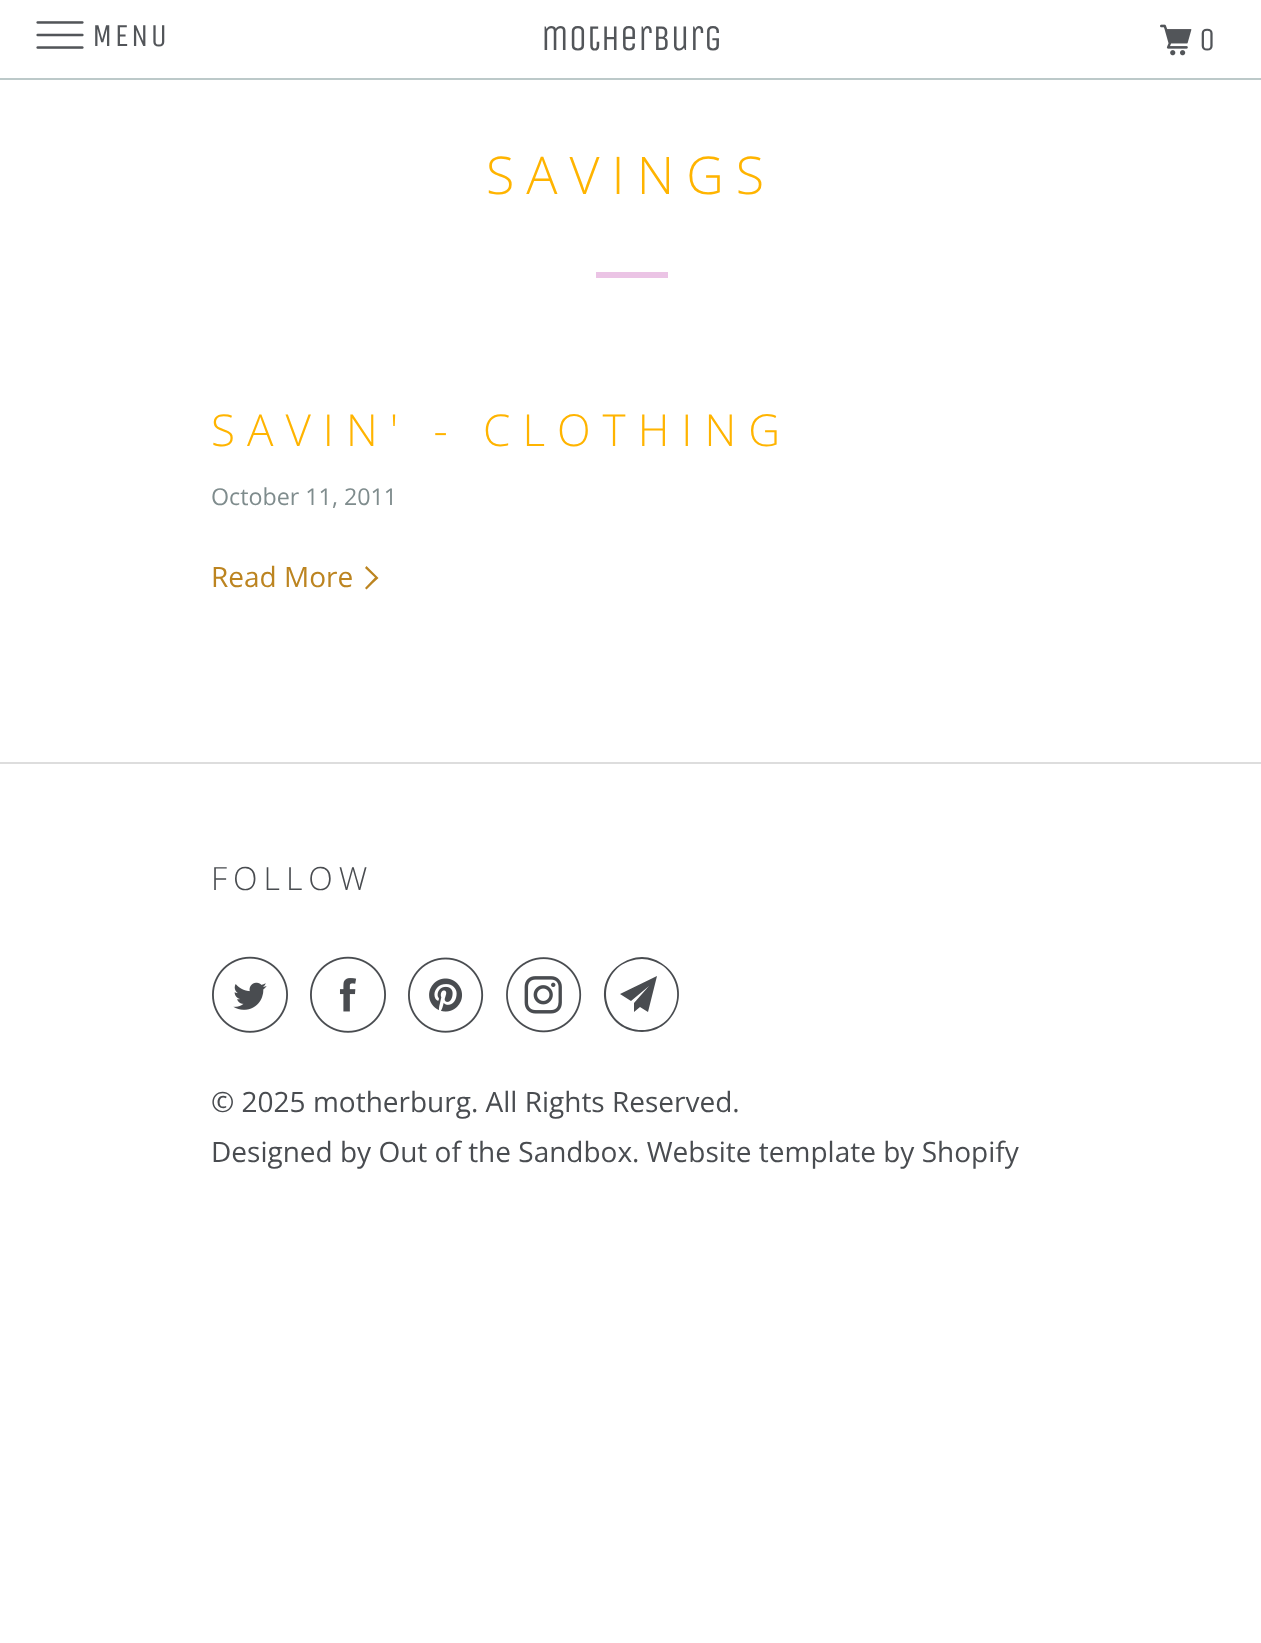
async function draw(canvas) {
	canvas.width = 1261;
	canvas.height = 1643;
	const c = canvas.getContext('2d');
	c.miterLimit = 4;
	c.fontKerning = 'normal';
	async function loadImage(src) {
		const img = new Image();
		img.src = src;
		await img.decode();
		return img;
	}

	c.fillStyle = '#fff';
	c.fillRect(0, 0, 1261, 1643);
	c.fillStyle = '#bcc9c9';
	c.fillRect(0, 78, 1261, 2);
	c.drawImage(await loadImage('img1.png'), 36, 21, 48, 28);
	c.letterSpacing = '2px';
	c.font = '32px Unica One';
	c.fillStyle = '#525559';
	c.fillText('MENU', 92, 46);
	c.letterSpacing = '0px';
	c.font = '36px Unica One';
	c.fillText('motherburg', 541, 50);
	c.drawImage(await loadImage('img2.png'), 1160, 24, 32, 32);
	c.letterSpacing = '2px';
	c.font = '32px Unica One';
	c.fillText('0', 1199, 50);
	c.letterSpacing = '12px';
	c.font = '300 52px Open Sans';
	c.fillStyle = '#ffb400';
	c.fillText('SAVINGS', 486, 194);
	c.fillStyle = '#ebc4e5';
	c.fillRect(596, 272, 72, 6);
	c.font = '300 44px Open Sans';
	c.fillStyle = '#ffb400';
	c.fillText('SAVIN\' - CLOTHING', 211, 446);
	c.letterSpacing = '0px';
	c.font = '23.25px Open Sans';
	c.fillStyle = '#7f8c8d';
	c.fillText('October 11, 2011', 211, 505);
	c.font = '28px Open Sans';
	c.fillStyle = '#bc8420';
	c.fillText('Read More', 211, 587);
	c.beginPath();
	c.moveTo(372.5, 583.5);
	c.lineTo(366.5, 589.5);
	c.lineTo(365, 588);
	c.lineTo(375, 577.5);
	c.lineTo(365, 568);
	c.lineTo(366.5, 566);
	c.lineTo(378.5, 578);
	c.closePath();
	c.fill();
	c.fillStyle = '#ddd';
	c.fillRect(0, 762, 1261, 2);
	c.letterSpacing = '6px';
	c.font = '300 32px Open Sans';
	c.fillStyle = '#494c50';
	c.fillText('FOLLOW', 211, 890);
	c.drawImage(await loadImage('img3.png'), 212, 956, 76, 77);
	c.drawImage(await loadImage('img4.png'), 310, 956, 76, 77);
	c.drawImage(await loadImage('img5.png'), 408, 957, 76, 76);
	c.drawImage(await loadImage('img6.png'), 506, 957, 76, 76);
	c.beginPath();
	c.moveTo(648, 1012);
	c.lineTo(640, 1007);
	c.lineTo(634, 1012);
	c.lineTo(634, 1003);
	c.lineTo(649, 986);
	c.lineTo(631, 1001);
	c.lineTo(620, 994);
	c.lineTo(657, 976);
	c.closePath();
	c.moveTo(642, 959);
	c.bezierCurveTo(634, 959, 626, 962, 620, 966);
	c.bezierCurveTo(593, 987, 608, 1030, 642, 1030);
	c.bezierCurveTo(676, 1030, 690, 987, 663, 966);
	c.bezierCurveTo(657, 962, 649, 959, 642, 959);
	c.closePath();
	c.moveTo(642, 1032);
	c.bezierCurveTo(606, 1032, 590, 986, 619, 965);
	c.bezierCurveTo(626, 960, 634, 957, 642, 957);
	c.bezierCurveTo(650, 957, 658, 960, 664, 965);
	c.bezierCurveTo(693, 986, 677, 1032, 642, 1032);
	c.closePath();
	c.fill();
	c.letterSpacing = '0px';
	c.font = '28px Open Sans';
	c.fillText('© 2025 motherburg. All Rights Reserved.', 211, 1112);
	c.fillText('Designed by Out of the Sandbox. Website template by Shopify', 211, 1162);
}

draw(document.querySelector('canvas'));
